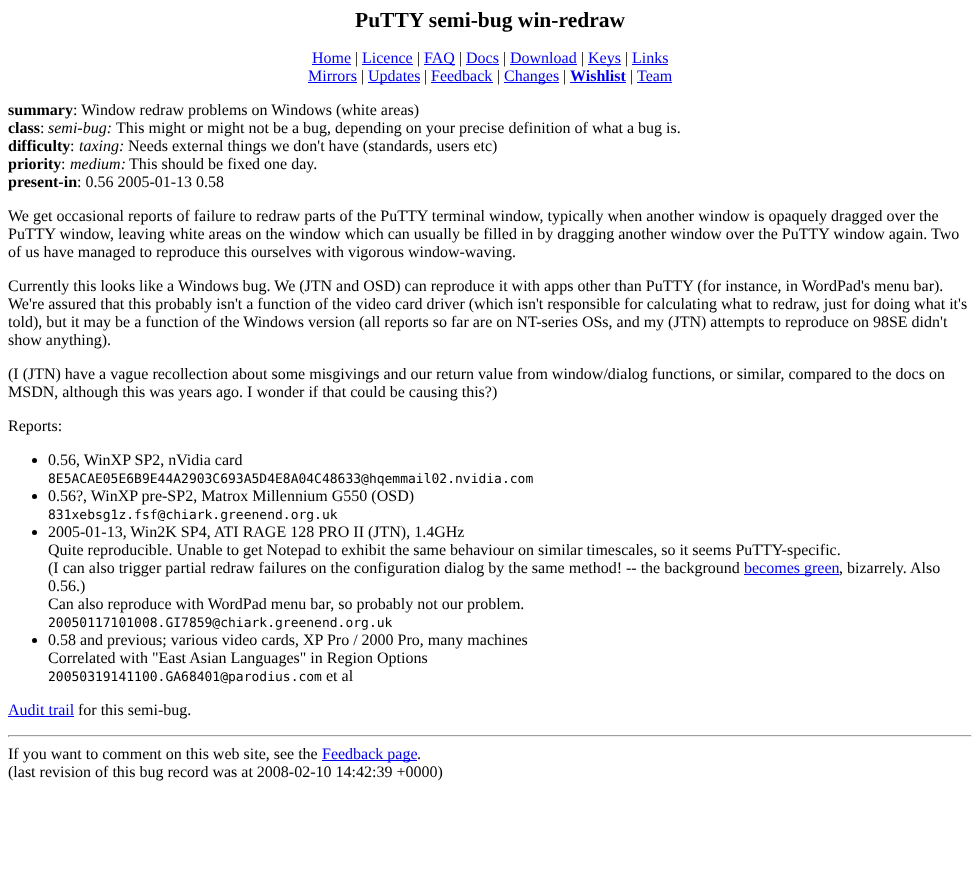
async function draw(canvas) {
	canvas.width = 980;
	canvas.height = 875;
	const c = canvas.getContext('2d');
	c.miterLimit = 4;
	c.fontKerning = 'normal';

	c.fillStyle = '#fff';
	c.fillRect(0, 0, 980, 875);
	c.font = 'bold 21.5px Liberation Serif';
	c.fillStyle = '#000';
	c.fillText('PuTTY semi-bug win-redraw', 355, 27);
	c.font = '16px Liberation Serif';
	c.fillStyle = '#00e';
	c.fillText('Home', 312, 63);
	c.fillRect(312, 64, 39, 1);
	c.fillStyle = '#000';
	c.fillText('|', 355, 63);
	c.fillStyle = '#00e';
	c.fillText('Licence', 362, 63);
	c.fillRect(362, 64, 51, 1);
	c.fillStyle = '#000';
	c.fillText('|', 417, 63);
	c.fillStyle = '#00e';
	c.fillRect(424, 64, 31, 1);
	c.fillText('FAQ', 424, 63);
	c.fillStyle = '#000';
	c.fillText('|', 459, 63);
	c.fillStyle = '#00e';
	c.fillText('Docs', 466, 63);
	c.fillRect(466, 64, 33, 1);
	c.fillStyle = '#000';
	c.fillText('|', 503, 63);
	c.fillStyle = '#00e';
	c.fillText('Download', 510, 63);
	c.fillRect(510, 64, 67, 1);
	c.fillStyle = '#000';
	c.fillText('|', 581, 63);
	c.fillStyle = '#00e';
	c.fillRect(588, 64, 33, 1);
	c.fillText('Keys', 588, 63);
	c.fillStyle = '#000';
	c.fillText('|', 625, 63);
	c.fillStyle = '#00e';
	c.fillText('Links', 632, 63);
	c.fillRect(632, 64, 36, 1);
	c.fillText('Mirrors', 308, 81);
	c.fillRect(308, 82, 49, 1);
	c.fillStyle = '#000';
	c.fillText('|', 361, 81);
	c.fillStyle = '#00e';
	c.fillRect(368, 82, 52, 1);
	c.fillText('Updates', 368, 81);
	c.fillStyle = '#000';
	c.fillText('|', 424, 81);
	c.fillStyle = '#00e';
	c.fillText('Feedback', 431, 81);
	c.fillRect(431, 82, 62, 1);
	c.fillStyle = '#000';
	c.fillText('|', 497, 81);
	c.fillStyle = '#00e';
	c.fillRect(504, 82, 55, 1);
	c.fillText('Changes', 504, 81);
	c.fillStyle = '#000';
	c.fillText('|', 563, 81);
	c.font = 'bold 16px Liberation Serif';
	c.fillStyle = '#00e';
	c.fillText('Wishlist', 570, 81);
	c.fillRect(570, 82, 56, 1);
	c.font = '16px Liberation Serif';
	c.fillStyle = '#000';
	c.fillText('|', 630, 81);
	c.fillStyle = '#00e';
	c.fillText('Team', 637, 81);
	c.fillRect(637, 82, 35, 1);
	c.font = 'bold 16px Liberation Serif';
	c.fillStyle = '#000';
	c.fillText('summary', 8, 115);
	c.font = '16px Liberation Serif';
	c.fillText(': Window redraw problems on Windows (white areas)', 73, 115);
	c.font = 'bold 16px Liberation Serif';
	c.fillText('class', 8, 133);
	c.font = '16px Liberation Serif';
	c.fillText(':', 40, 133);
	c.font = 'italic 16px Liberation Serif';
	c.fillText('semi-bug:', 48, 133);
	c.font = '16px Liberation Serif';
	c.fillText('This might or might not be a bug, depending on your precise definition of what a bug is.', 116, 133);
	c.font = 'bold 16px Liberation Serif';
	c.fillText('difficulty', 8, 151);
	c.font = '16px Liberation Serif';
	c.fillText(':', 70, 151);
	c.font = 'italic 16px Liberation Serif';
	c.fillText('taxing:', 79, 151);
	c.font = '16px Liberation Serif';
	c.fillText('Needs external things we don\'t have (standards, users etc)', 128, 151);
	c.font = 'bold 16px Liberation Serif';
	c.fillText('priority', 8, 169);
	c.font = '16px Liberation Serif';
	c.fillText(':', 61, 169);
	c.font = 'italic 16px Liberation Serif';
	c.fillText('medium:', 70, 169);
	c.font = '16px Liberation Serif';
	c.fillText('This should be fixed one day.', 129, 169);
	c.font = 'bold 16px Liberation Serif';
	c.fillText('present-in', 8, 187);
	c.font = '16px Liberation Serif';
	for (const [text, x, y] of [
		[': 0.56 2005-01-13 0.58', 77, 187],
		['We get occasional reports of failure to redraw parts of the PuTTY terminal window, typically when another window is opaquely dragged over the', 8, 221],
		['PuTTY window, leaving white areas on the window which can usually be filled in by dragging another window over the PuTTY window again. Two', 8, 239],
		['of us have managed to reproduce this ourselves with vigorous window-waving.', 8, 257],
		['Currently this looks like a Windows bug. We (JTN and OSD) can reproduce it with apps other than PuTTY (for instance, in WordPad\'s menu bar).', 8, 291],
		['We\'re assured that this probably isn\'t a function of the video card driver (which isn\'t responsible for calculating what to redraw, just for doing what it\'s', 8, 309],
		['told), but it may be a function of the Windows version (all reports so far are on NT-series OSs, and my (JTN) attempts to reproduce on 98SE didn\'t', 8, 327],
		['show anything).', 8, 345],
		['(I (JTN) have a vague recollection about some misgivings and our return value from window/dialog functions, or similar, compared to the docs on', 8, 379],
		['MSDN, although this was years ago. I wonder if that could be causing this?)', 8, 397],
		['Reports:', 8, 431],
	]) {
		c.fillText(text, x, y);
	}
	c.beginPath();
	c.arc(34.5, 460.5, 2.5, 0, 2 * Math.PI);
	c.fill();
	c.fillText('0.56, WinXP SP2, nVidia card', 48, 465);
	c.font = '13px DejaVu Sans Mono';
	c.fillText('8E5ACAE05E6B9E44A2903C693A5D4E8A04C48633@hqemmail02.nvidia.com', 48, 483);
	c.beginPath();
	c.arc(34.5, 496.5, 2.5, 0, 2 * Math.PI);
	c.fill();
	c.font = '16px Liberation Serif';
	c.fillText('0.56?, WinXP pre-SP2, Matrox Millennium G550 (OSD)', 48, 501);
	c.font = '13px DejaVu Sans Mono';
	c.fillText('831xebsg1z.fsf@chiark.greenend.org.uk', 48, 519);
	c.beginPath();
	c.arc(34.5, 532.5, 2.5, 0, 2 * Math.PI);
	c.fill();
	c.font = '16px Liberation Serif';
	for (const [text, x, y] of [
		['2005-01-13, Win2K SP4, ATI RAGE 128 PRO II (JTN), 1.4GHz', 48, 537],
		['Quite reproducible. Unable to get Notepad to exhibit the same behaviour on similar timescales, so it seems PuTTY-specific.', 48, 555],
		['(I can also trigger partial redraw failures on the configuration dialog by the same method! -- the background', 48, 573],
	]) {
		c.fillText(text, x, y);
	}
	c.fillStyle = '#00e';
	c.fillRect(744, 574, 95, 1);
	c.fillText('becomes green', 744, 573);
	c.fillStyle = '#000';
	for (const [text, x, y] of [
		[', bizarrely. Also', 839, 573],
		['0.56.)', 48, 591],
		['Can also reproduce with WordPad menu bar, so probably not our problem.', 48, 609],
	]) {
		c.fillText(text, x, y);
	}
	c.font = '13px DejaVu Sans Mono';
	c.fillText('20050117101008.GI7859@chiark.greenend.org.uk', 48, 627);
	c.beginPath();
	c.arc(34.5, 640.5, 2.5, 0, 2 * Math.PI);
	c.fill();
	c.font = '16px Liberation Serif';
	c.fillText('0.58 and previous; various video cards, XP Pro / 2000 Pro, many machines', 48, 645);
	c.fillText('Correlated with "East Asian Languages" in Region Options', 48, 663);
	c.font = '13px DejaVu Sans Mono';
	c.fillText('20050319141100.GA68401@parodius.com', 48, 681);
	c.font = '16px Liberation Serif';
	c.fillText('et al', 326, 681);
	c.fillStyle = '#00e';
	c.fillText('Audit trail', 8, 715);
	c.fillRect(8, 716, 66, 1);
	c.fillStyle = '#000';
	c.fillText('for this semi-bug.', 78, 715);
	for (const [x, y, w, h, color] of [
		[8, 735, 964, 1, '#9f9f9f'],
		[971, 735, 1, 2, '#eee'],
		[8, 736, 964, 1, '#eee'],
		[8, 735, 1, 2, '#9f9f9f'],
	]) {
		c.fillStyle = color;
		c.fillRect(x, y, w, h);
	}
	c.fillStyle = '#000';
	c.fillText('If you want to comment on this web site, see the', 8, 759);
	c.fillStyle = '#00e';
	c.fillRect(322, 760, 95, 1);
	c.fillText('Feedback page', 322, 759);
	c.fillStyle = '#000';
	c.fillText('.', 417, 759);
	c.fillText('(last revision of this bug record was at 2008-02-10 14:42:39 +0000)', 8, 777);
}

draw(document.querySelector('canvas'));
